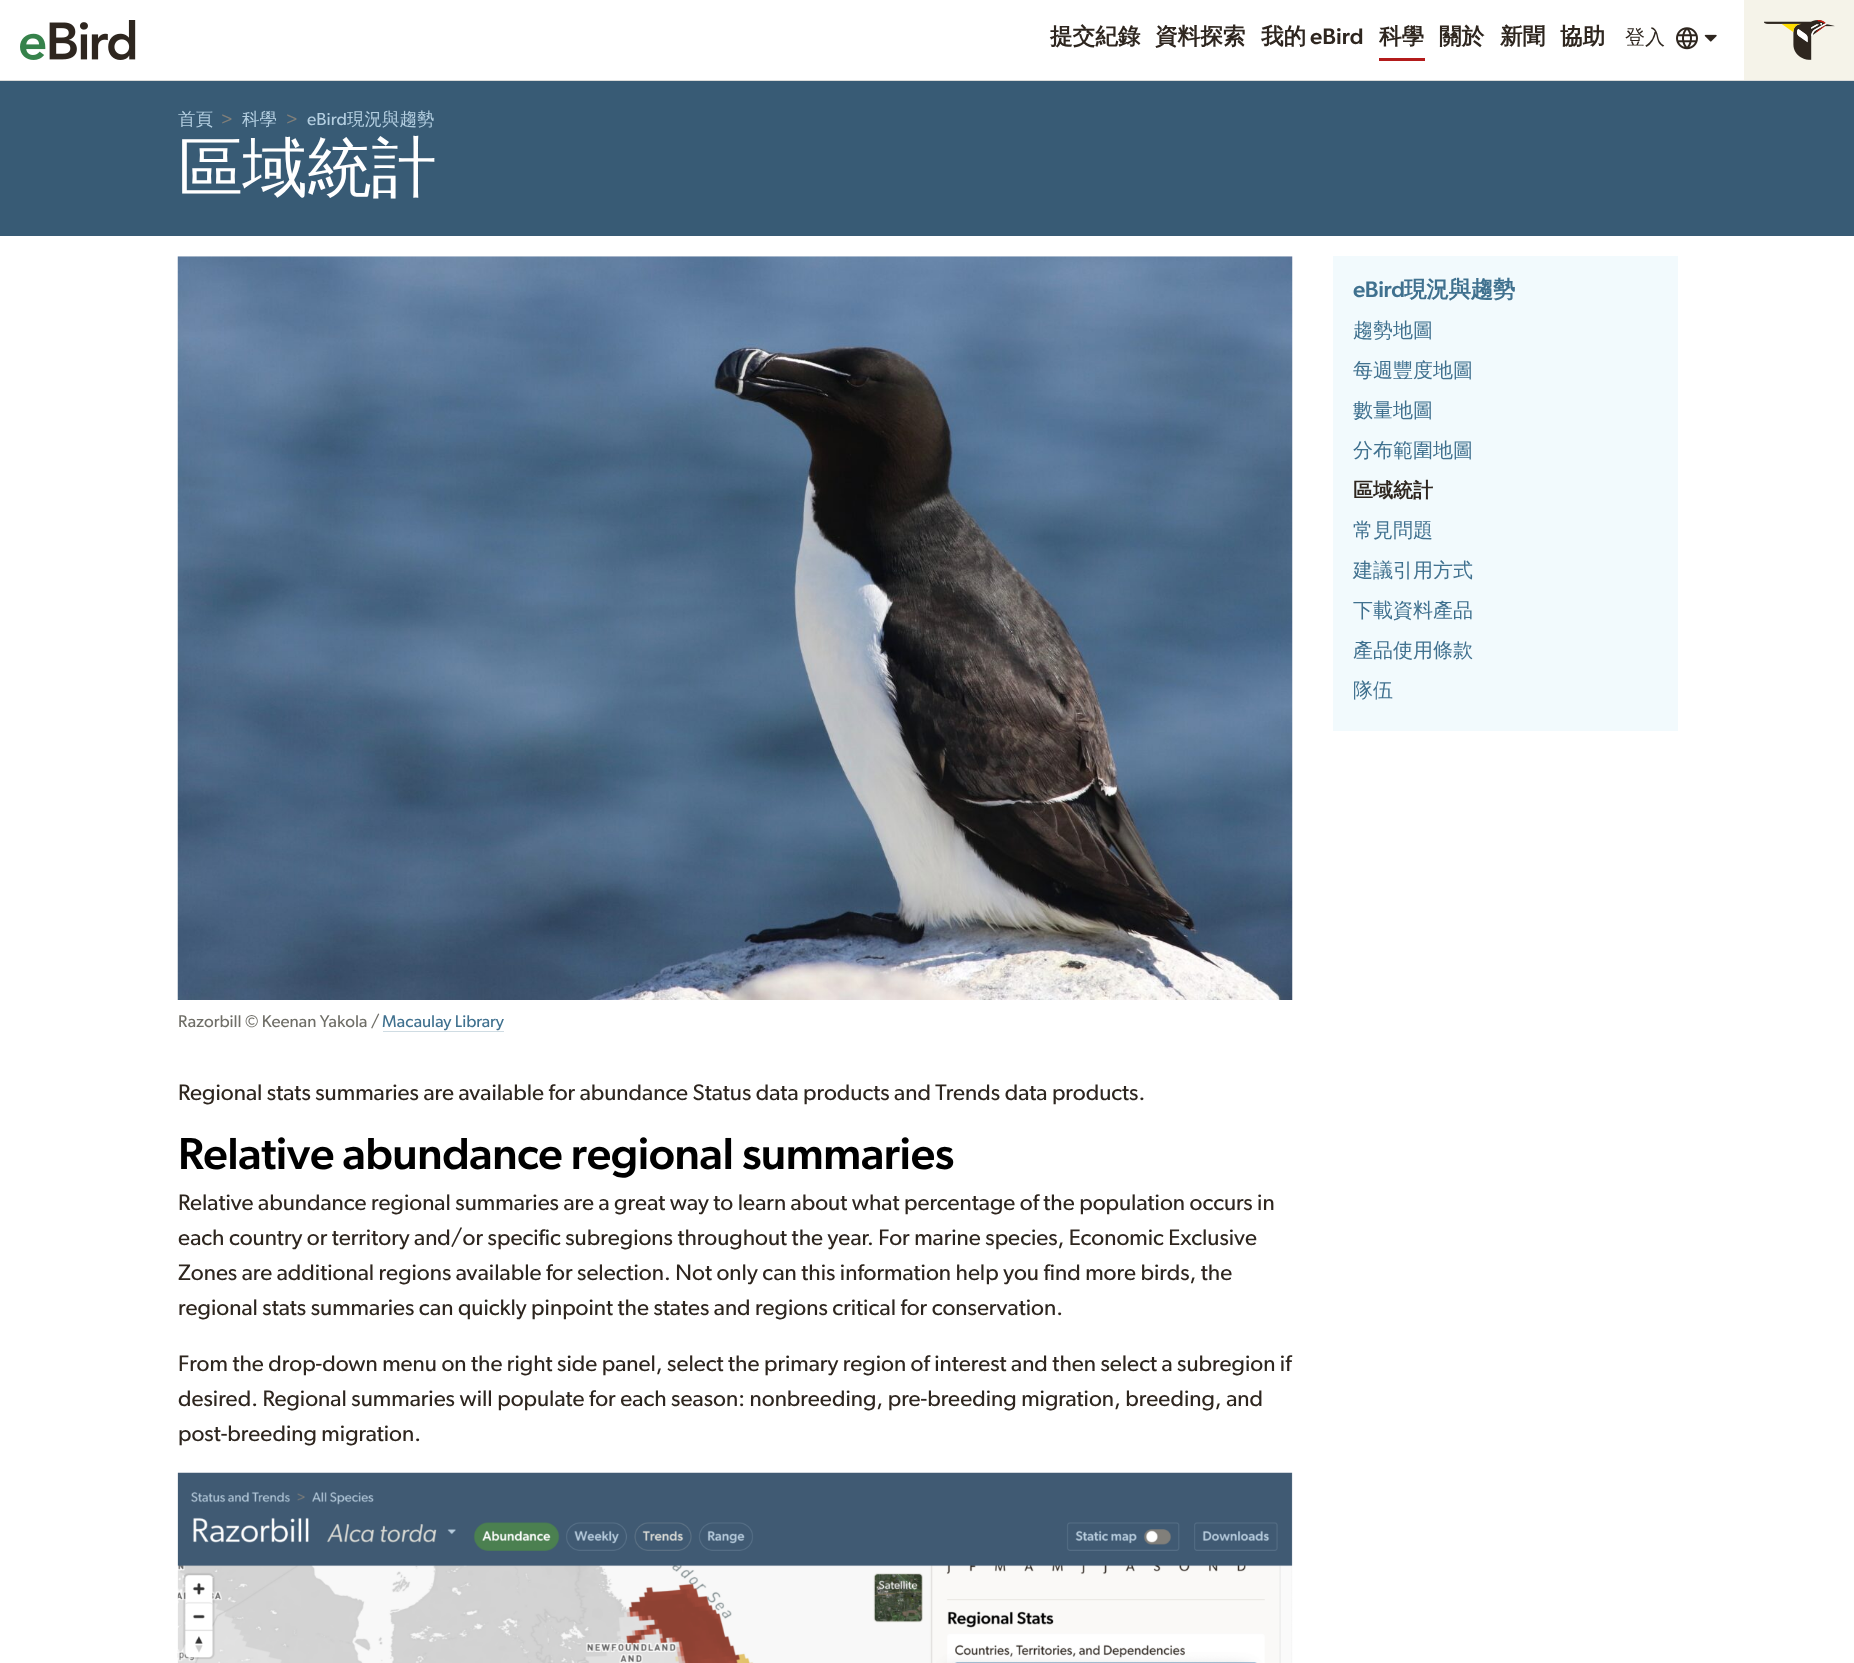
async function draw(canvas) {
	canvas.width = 1854;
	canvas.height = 1663;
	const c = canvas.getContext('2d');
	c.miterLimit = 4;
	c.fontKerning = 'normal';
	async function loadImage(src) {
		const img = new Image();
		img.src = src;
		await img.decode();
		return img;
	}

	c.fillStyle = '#fff';
	c.fillRect(0, 0, 1854, 1663);
	c.fillStyle = '#dbdbd9';
	c.fillRect(0, 80, 1854, 1);
	c.drawImage(await loadImage('img1.png'), 20, 20, 116, 40);
	c.font = 'bold 22.6px WenQuanYi Zen Hei';
	c.fillStyle = '#2e261f';
	for (const [text, x, y] of [
		['提交紀錄', 1050, 44],
		['資料探索', 1155, 44],
		['我的', 1261, 44],
	]) {
		c.fillText(text, x, y);
	}
	c.font = '500 22.6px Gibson';
	c.fillText('eBird', 1310, 44);
	c.fillStyle = '#b31b1b';
	c.fillRect(1379, 58, 46, 3);
	c.font = 'bold 22.6px WenQuanYi Zen Hei';
	c.fillStyle = '#2e261f';
	for (const [text, x, y] of [
		['科學', 1379, 44],
		['關於', 1439, 44],
		['新聞', 1500, 44],
		['協助', 1560, 44],
	]) {
		c.fillText(text, x, y);
	}
	c.font = '500 20px WenQuanYi Zen Hei';
	c.fillText('登入', 1625, 44);
	c.drawImage(await loadImage('img2.png'), 1676, 27, 22, 23);
	c.drawImage(await loadImage('img3.png'), 1704, 34, 13, 8);
	c.fillStyle = '#f5f3e9';
	c.fillRect(1744, 0, 110, 80);
	c.drawImage(await loadImage('img4.png'), 1764, 20, 71, 40);
	c.fillStyle = '#385b75';
	c.fillRect(0, 81, 1854, 155);
	c.font = '500 17.5px WenQuanYi Zen Hei';
	c.fillStyle = '#b4cfe1';
	c.fillText('首頁', 178, 125);
	c.font = '17.5px Gibson';
	c.fillStyle = '#817f79';
	c.fillText('>', 221, 125);
	c.font = '500 17.5px WenQuanYi Zen Hei';
	c.fillStyle = '#b4cfe1';
	c.fillText('科學', 242, 125);
	c.font = '17.5px Gibson';
	c.fillStyle = '#817f79';
	c.fillText('>', 286, 125);
	c.fillStyle = '#b4cfe1';
	c.fillText('eBird', 307, 125);
	c.font = '500 17.5px WenQuanYi Zen Hei';
	c.fillText('現況與趨勢', 347, 125);
	c.letterSpacing = '-0.5px';
	c.font = '500 65px WenQuanYi Zen Hei';
	c.fillStyle = '#fff';
	c.fillText('區域統計', 178, 190);
	c.fillStyle = '#f2fafd';
	c.fillRect(1333, 256, 345, 475);
	c.letterSpacing = '-0.4px';
	c.font = '500 22.6px Gibson';
	c.fillStyle = '#40718f';
	c.fillText('eBird', 1353, 297);
	c.font = 'bold 22.6px WenQuanYi Zen Hei';
	c.fillText('現況與趨勢', 1404, 297);
	c.letterSpacing = '0px';
	c.font = '500 20px WenQuanYi Zen Hei';
	for (const [text, x, y] of [
		['趨勢地圖', 1353, 337],
		['每週豐度地圖', 1353, 377],
		['數量地圖', 1353, 417],
		['分布範圍地圖', 1353, 457],
	]) {
		c.fillText(text, x, y);
	}
	c.font = 'bold 20px WenQuanYi Zen Hei';
	c.fillStyle = '#2e261f';
	c.fillText('區域統計', 1353, 497);
	c.font = '500 20px WenQuanYi Zen Hei';
	c.fillStyle = '#40718f';
	for (const [text, x, y] of [
		['常見問題', 1353, 537],
		['建議引用方式', 1353, 577],
		['下載資料產品', 1353, 617],
		['產品使用條款', 1353, 657],
		['隊伍', 1353, 697],
	]) {
		c.fillText(text, x, y);
	}
	c.drawImage(await loadImage('img5.png'), 177, 256, 1116, 744);
	c.font = '17px Gibson';
	c.fillStyle = '#6f6e67';
	c.fillText('Razorbill © Keenan Yakola /', 178, 1027);
	c.fillStyle = '#40718f';
	c.fillText('Macaulay Library', 382, 1027);
	c.fillStyle = '#cfdce3';
	c.fillRect(383, 1031, 121, 1);
	c.font = '22.6px Gibson';
	c.fillStyle = '#2e261f';
	c.fillText('Regional stats summaries are available for abundance Status data products and Trends data products.', 178, 1100);
	c.letterSpacing = '-0.4px';
	c.font = '500 45px Gibson';
	c.fillStyle = '#000';
	c.fillText('Relative abundance regional summaries', 178, 1169);
	c.letterSpacing = '0px';
	c.font = '22.6px Gibson';
	c.fillStyle = '#2e261f';
	for (const [text, x, y] of [
		['Relative abundance regional summaries are a great way to learn about what percentage of the population occurs in', 178, 1210],
		['each country or territory and/or specific subregions throughout the year. For marine species, Economic Exclusive', 178, 1245],
		['Zones are additional regions available for selection. Not only can this information help you find more birds, the', 178, 1280],
		['regional stats summaries can quickly pinpoint the states and regions critical for conservation.', 178, 1315],
		['From the drop-down menu on the right side panel, select the primary region of interest and then select a subregion if', 178, 1371],
		['desired. Regional summaries will populate for each season: nonbreeding, pre-breeding migration, breeding, and', 178, 1406],
		['post-breeding migration.', 178, 1441],
	]) {
		c.fillText(text, x, y);
	}
	c.drawImage(await loadImage('img6.png'), 177, 1472, 1116, 191);
}

draw(document.querySelector('canvas'));
